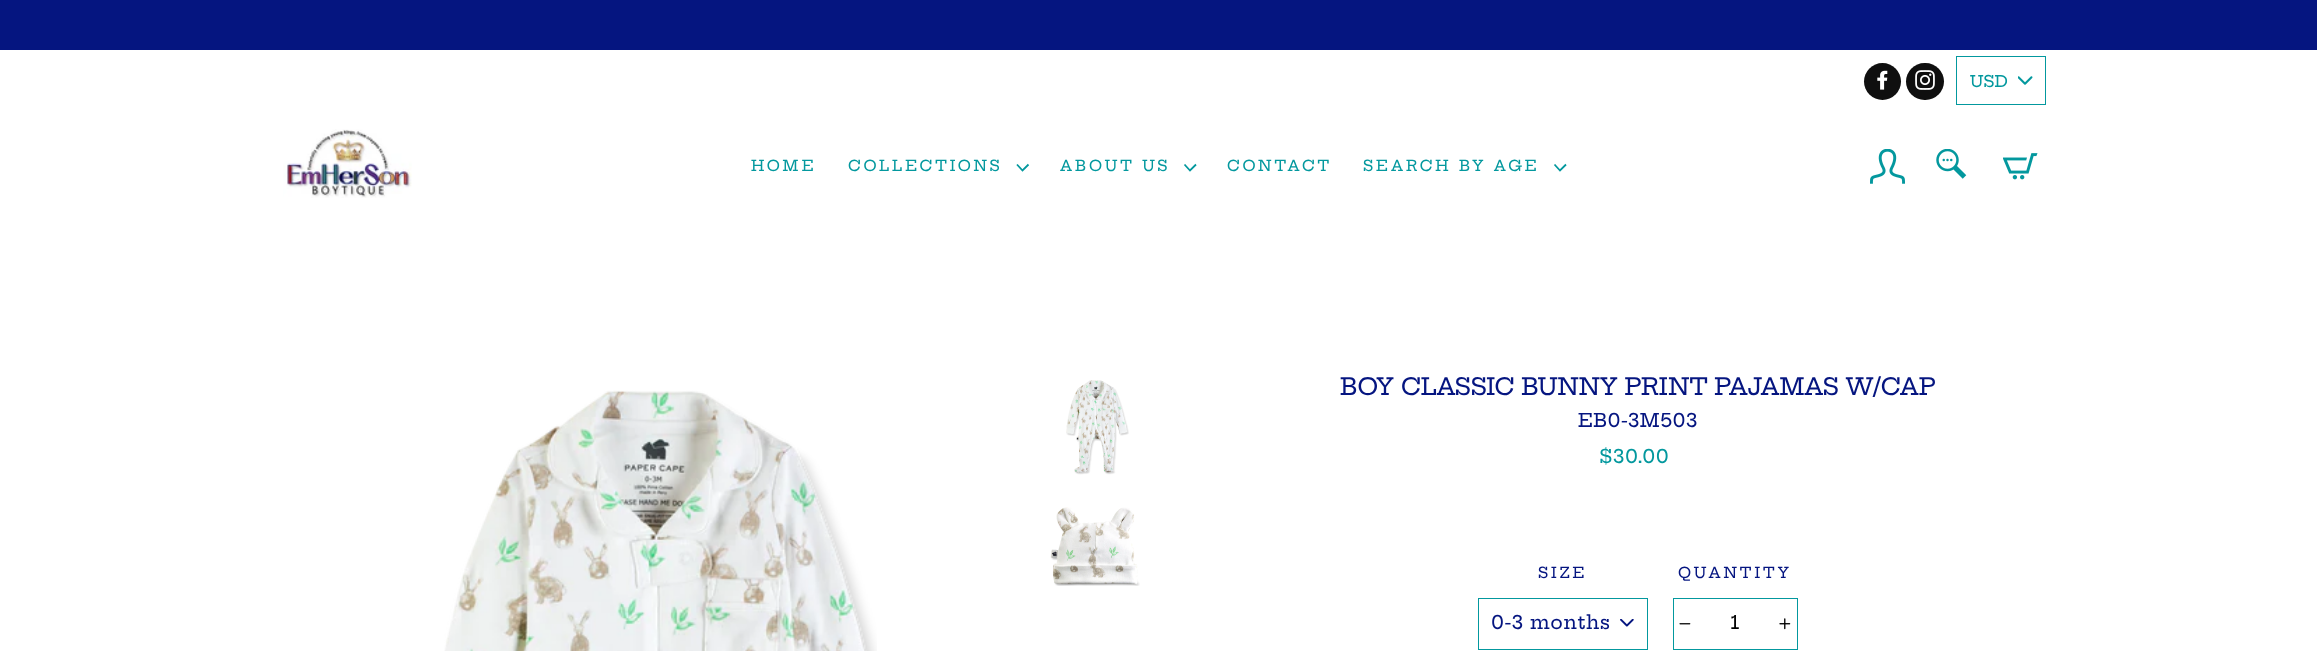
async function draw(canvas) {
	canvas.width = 2317;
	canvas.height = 651;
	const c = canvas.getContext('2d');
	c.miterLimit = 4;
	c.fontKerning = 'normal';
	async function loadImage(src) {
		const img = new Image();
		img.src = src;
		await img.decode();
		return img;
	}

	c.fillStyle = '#fff';
	c.fillRect(0, 0, 2317, 651);
	c.fillStyle = '#051580';
	c.fillRect(0, 0, 2317, 50);
	c.fillStyle = '#0f0f0f';
	c.beginPath();
	c.arc(1882.5, 81.5, 18.5, 0, 2 * Math.PI);
	c.fill();
	c.drawImage(await loadImage('img1.png'), 1877, 70, 11, 20);
	c.beginPath();
	c.roundRect(1906, 63, 38, 37, 18.5);
	c.fill();
	c.drawImage(await loadImage('img2.png'), 1915, 70, 20, 20);
	c.drawImage(await loadImage('img3.png'), 2018, 76, 15, 9);
	c.strokeStyle = '#03989e';
	c.strokeRect(1956.5, 56.5, 89, 48);
	c.letterSpacing = '0.5px';
	c.font = '500 16px Hepta Slab';
	c.fillStyle = '#03989e';
	c.fillText('USD', 1970, 87);
	c.drawImage(await loadImage('img4.png'), 283, 129, 129, 69);
	c.letterSpacing = '3px';
	c.font = '500 15px Hepta Slab';
	c.fillText('HOME', 751, 171);
	c.fillText('COLLECTIONS', 848, 171);
	c.beginPath();
	c.moveTo(1017, 164.5);
	c.lineTo(1022.5, 170.5);
	c.lineTo(1028.5, 164.5);
	c.lineWidth = 1.8;
	c.stroke();
	c.fillText('ABOUT US', 1060, 171);
	c.beginPath();
	c.moveTo(1184.5, 164.5);
	c.lineTo(1190, 170.5);
	c.lineTo(1196, 164.5);
	c.stroke();
	c.fillText('CONTACT', 1227, 171);
	c.fillText('SEARCH BY AGE', 1363, 171);
	c.beginPath();
	c.moveTo(1554.5, 164.5);
	c.lineTo(1560, 170.5);
	c.lineTo(1566, 164.5);
	c.stroke();
	c.drawImage(await loadImage('img5.png'), 1870, 149, 35, 35);
	c.drawImage(await loadImage('img6.png'), 1936, 149, 31, 30);
	c.drawImage(await loadImage('img7.png'), 2003, 153, 35, 27);
	c.drawImage(await loadImage('img8.png'), 444, 390, 433, 261);
	c.drawImage(await loadImage('img9.png'), 1066, 380, 63, 95);
	c.drawImage(await loadImage('img10.png'), 1050, 507, 90, 79);
	c.letterSpacing = '0px';
	c.font = '500 23.65px Hepta Slab';
	c.fillStyle = '#051580';
	c.fillText('BOY CLASSIC BUNNY PRINT PAJAMAS W/CAP', 1340, 395);
	c.letterSpacing = '0.5px';
	c.font = '500 18.75px Hepta Slab';
	c.fillText('EB0-3M503', 1578, 427);
	c.fillStyle = '#03989e';
	c.fillText('$30.00', 1599, 463);
	c.letterSpacing = '3px';
	c.font = '500 15px Hepta Slab';
	c.fillStyle = '#051580';
	c.fillText('SIZE', 1538, 578);
	c.drawImage(await loadImage('img11.png'), 1620, 619, 14, 8);
	c.lineWidth = 1;
	c.strokeRect(1478.5, 598.5, 169, 51);
	c.letterSpacing = '0.5px';
	c.font = '500 18.75px Hepta Slab';
	c.fillText('0-3 months', 1491, 629);
	c.letterSpacing = '3px';
	c.font = '500 15px Hepta Slab';
	c.fillText('QUANTITY', 1678, 578);
	c.strokeRect(1673.5, 598.5, 124, 51);
	c.drawImage(await loadImage('img12.png'), 1679, 623, 12, 2);
	c.letterSpacing = '0.5px';
	c.font = '500 18.75px Hepta Slab';
	c.fillStyle = '#000';
	c.fillText('1', 1730, 629);
	c.drawImage(await loadImage('img13.png'), 1779, 618, 12, 12);
}

draw(document.querySelector('canvas'));
